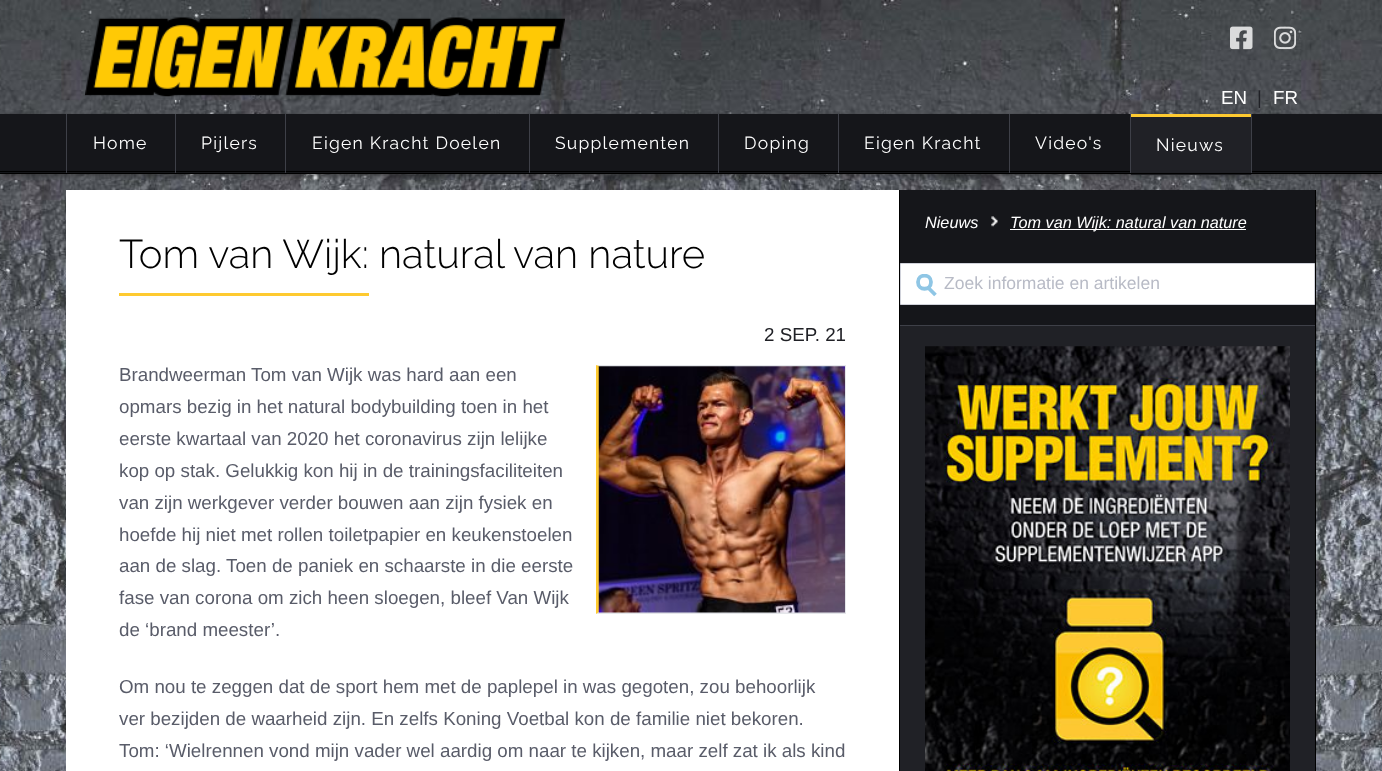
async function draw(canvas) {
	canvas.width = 1382;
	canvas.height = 771;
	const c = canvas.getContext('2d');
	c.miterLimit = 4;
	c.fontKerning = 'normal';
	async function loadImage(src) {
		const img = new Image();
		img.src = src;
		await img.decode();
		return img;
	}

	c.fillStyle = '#fff';
	c.fillRect(0, 0, 1382, 771);
	c.drawImage(await loadImage('img1.png'), 0, 0, 1382, 771);
	c.drawImage(await loadImage('img2.png'), 85, 17, 480, 80);
	c.drawImage(await loadImage('img3.png'), 1230, 26, 23, 24);
	c.drawImage(await loadImage('img4.png'), 1274, 26, 22, 24);
	c.font = '18.75px Liberation Sans';
	c.fillText('EN', 1221, 104);
	c.fillStyle = '#202126';
	c.fillText('|', 1257, 104);
	c.fillStyle = '#fff';
	c.fillText('FR', 1273, 104);
	c.fillStyle = '#323232b3';
	c.filter = 'blur(2px)';
	c.beginPath();
	c.rect(3, 116, 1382, 59);
	c.fill();
	c.filter = 'none';
	for (const [x, y, w, h, color] of [
		[0, 114, 1382, 59, '#15161a'],
		[0, 171, 1382, 1, '#000'],
		[66, 114, 1, 61, '#3e4048'],
		[175, 114, 1, 59, '#3e4048'],
	]) {
		c.fillStyle = color;
		c.fillRect(x, y, w, h);
	}
	c.letterSpacing = '1.25px';
	c.font = '17.5px Raleway';
	c.fillStyle = '#fff';
	c.fillText('Home', 93, 149);
	c.fillStyle = '#3e4048';
	c.fillRect(285, 114, 1, 59);
	c.fillStyle = '#fff';
	c.fillText('Pijlers', 201, 149);
	c.fillStyle = '#3e4048';
	c.fillRect(529, 114, 1, 59);
	c.fillStyle = '#fff';
	c.fillText('Eigen Kracht Doelen', 312, 149);
	c.fillStyle = '#3e4048';
	c.fillRect(718, 114, 1, 59);
	c.fillStyle = '#fff';
	c.fillText('Supplementen', 555, 149);
	c.fillStyle = '#3e4048';
	c.fillRect(838, 114, 1, 59);
	c.fillStyle = '#fff';
	c.fillText('Doping', 744, 149);
	c.fillStyle = '#3e4048';
	c.fillRect(1009, 114, 1, 59);
	c.fillStyle = '#fff';
	c.fillText('Eigen Kracht', 864, 149);
	c.fillStyle = '#3e4048';
	c.fillRect(1130, 114, 1, 59);
	c.fillStyle = '#fff';
	c.fillText('Video\'s', 1035, 149);
	for (const [x, y, w, h, color] of [
		[1251, 114, 1, 61, '#3e4048'],
		[1131, 117, 120, 58, '#202126'],
		[1131, 114, 120, 3, '#feca30'],
	]) {
		c.fillStyle = color;
		c.fillRect(x, y, w, h);
	}
	c.fillStyle = '#fff';
	c.fillText('Nieuws', 1156, 151);
	c.fillStyle = '#00000080';
	c.filter = 'blur(2px)';
	c.beginPath();
	c.rect(3, 175, 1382, 1);
	c.fill();
	c.filter = 'none';
	for (const [x, y, w, h, color] of [
		[0, 173, 1382, 1, '#000'],
		[900, 190, 415, 135, '#15161a'],
		[1315, 190, 1, 581, '#000'],
		[66, 190, 833, 581, '#fff'],
	]) {
		c.fillStyle = color;
		c.fillRect(x, y, w, h);
	}
	c.letterSpacing = '0px';
	c.font = '300 40px Raleway';
	c.fillStyle = '#000';
	c.fillText('Tom van Wijk: natural van nature', 119, 268);
	c.fillStyle = '#feca30';
	c.fillRect(119, 293, 250, 3);
	c.font = '18.75px Liberation Sans';
	c.fillStyle = '#202126';
	c.fillText('2 SEP. 21', 764, 341);
	c.fillStyle = '#595c69';
	for (const [text, x, y] of [
		['Brandweerman Tom van Wijk was hard aan een', 119, 381],
		['opmars bezig in het natural bodybuilding toen in het', 119, 413],
		['eerste kwartaal van 2020 het coronavirus zijn lelijke', 119, 445],
		['kop op stak. Gelukkig kon hij in de trainingsfaciliteiten', 119, 477],
		['van zijn werkgever verder bouwen aan zijn fysiek en', 119, 509],
		['hoefde hij niet met rollen toiletpapier en keukenstoelen', 119, 541],
		['aan de slag. Toen de paniek en schaarste in die eerste', 119, 572],
		['fase van corona om zich heen sloegen, bleef Van Wijk', 119, 604],
		['de ‘brand meester’.', 119, 636],
	]) {
		c.fillText(text, x, y);
	}
	c.fillStyle = '#e4e6ea';
	c.beginPath();
	c.moveTo(596, 365);
	c.lineTo(846, 365);
	c.lineTo(845, 366);
	c.lineTo(599, 366);
	c.closePath();
	c.fill();
	c.fillRect(845, 365, 1, 249);
	c.beginPath();
	c.moveTo(846, 614);
	c.lineTo(596, 614);
	c.lineTo(599, 612);
	c.lineTo(845, 612);
	c.closePath();
	c.fill();
	c.fillStyle = '#feca30';
	c.beginPath();
	c.moveTo(596, 614);
	c.lineTo(596, 365);
	c.lineTo(599, 366);
	c.lineTo(599, 612);
	c.closePath();
	c.fill();
	c.drawImage(await loadImage('img5.png'), 598, 366, 247, 247);
	c.fillStyle = '#595c69';
	for (const [text, x, y] of [
		['Om nou te zeggen dat de sport hem met de paplepel in was gegoten, zou behoorlijk', 119, 693],
		['ver bezijden de waarheid zijn. En zelfs Koning Voetbal kon de familie niet bekoren.', 119, 725],
		['Tom: ‘Wielrennen vond mijn vader wel aardig om naar te kijken, maar zelf zat ik als kind', 119, 757],
	]) {
		c.fillText(text, x, y);
	}
	c.fillStyle = '#000';
	c.fillRect(899, 190, 1, 581);
	c.font = 'italic 16.25px Liberation Sans';
	c.fillStyle = '#fff';
	c.fillText('Nieuws', 925, 228);
	c.drawImage(await loadImage('img6.png'), 991, 216, 7, 11);
	c.fillRect(1010, 229, 236, 1);
	c.fillText('Tom van Wijk: natural van nature', 1010, 228);
	c.beginPath();
	c.rect(900.5, 263.5, 414, 41);
	c.fill();
	c.strokeStyle = '#d0d2da';
	c.stroke();
	c.save();
	c.beginPath();
	c.rect(915, 274, 23, 22);
	c.clip();
	c.beginPath();
	c.moveTo(931, 282);
	c.bezierCurveTo(931, 291, 918, 291, 918, 282);
	c.bezierCurveTo(918, 273.5, 931, 273.5, 931, 282);
	c.closePath();
	c.strokeStyle = '#8fc6e5';
	c.lineWidth = 3.8;
	c.stroke();
	c.restore();
	c.beginPath();
	c.moveTo(928, 287.5);
	c.lineTo(935.5, 295);
	c.strokeStyle = '#8fc6e5';
	c.lineWidth = 3.8;
	c.stroke();
	c.font = '17.5px Liberation Sans';
	c.fillStyle = '#b8bbc6';
	c.fillText('Zoek informatie en artikelen', 944, 289);
	c.fillStyle = '#202126';
	c.fillRect(900, 326, 415, 445);
	c.fillStyle = '#3e4048';
	c.fillRect(900, 325, 415, 1);
	c.drawImage(await loadImage('img7.png'), 925, 346, 365, 425);
}

draw(document.querySelector('canvas'));
